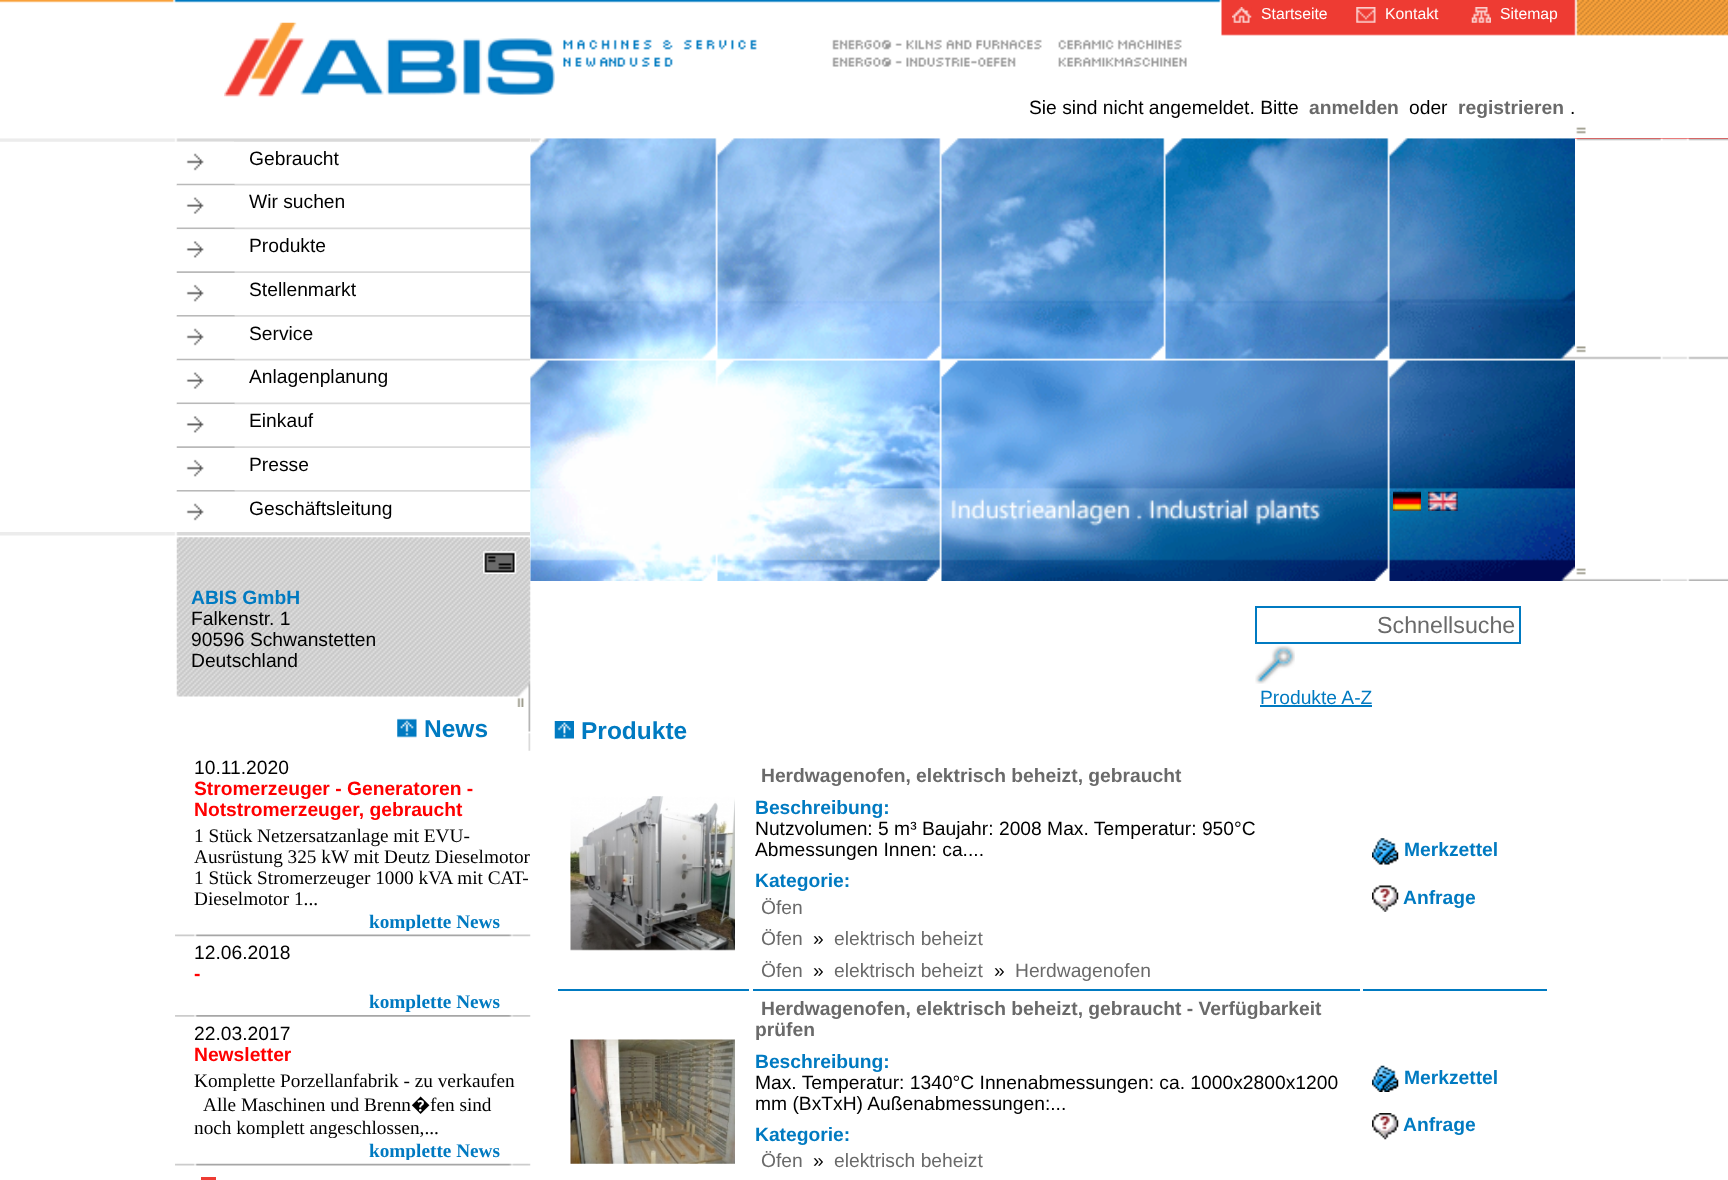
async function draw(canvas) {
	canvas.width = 1728;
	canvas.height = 1180;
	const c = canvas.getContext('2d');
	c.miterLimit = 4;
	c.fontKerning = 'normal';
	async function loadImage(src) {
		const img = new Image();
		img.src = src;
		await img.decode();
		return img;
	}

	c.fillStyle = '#fff';
	c.fillRect(0, 0, 1728, 1180);
	c.drawImage(await loadImage('img1.png'), 0, 0, 1728, 134);
	c.drawImage(await loadImage('img2.png'), 1232, 7, 20, 16);
	c.font = '15.75px Liberation Sans';
	c.fillText('Startseite', 1261, 19);
	c.drawImage(await loadImage('img3.png'), 1356, 7, 20, 16);
	c.fillText('Kontakt', 1385, 19);
	c.drawImage(await loadImage('img4.png'), 1471, 7, 20, 16);
	c.fillText('Sitemap', 1500, 19);
	c.drawImage(await loadImage('img5.png'), 224, 22, 331, 75);
	c.font = '19.25px Liberation Sans';
	c.fillStyle = '#000';
	c.fillText('Sie sind nicht angemeldet. Bitte', 1029, 114);
	c.font = 'bold 19.25px Liberation Sans';
	c.fillStyle = '#6a6a6a';
	c.fillText('anmelden', 1309, 114);
	c.font = '19.25px Liberation Sans';
	c.fillStyle = '#000';
	c.fillText('oder', 1409, 114);
	c.font = 'bold 19.25px Liberation Sans';
	c.fillStyle = '#6a6a6a';
	c.fillText('registrieren', 1458, 114);
	c.font = '19.25px Liberation Sans';
	c.fillStyle = '#000';
	c.fillText('.', 1570, 114);
	c.drawImage(await loadImage('img6.png'), 0, 138, 530, 4);
	c.drawImage(await loadImage('img7.png'), 0, 532, 530, 4);
	c.drawImage(await loadImage('img8.png'), 177, 141, 57, 30);
	c.fillText('Gebraucht', 249, 165);
	c.drawImage(await loadImage('img9.png'), 176, 183, 354, 3);
	c.drawImage(await loadImage('img10.png'), 177, 185, 58, 29);
	c.fillText('Wir suchen', 249, 208);
	c.drawImage(await loadImage('img11.png'), 176, 227, 354, 3);
	c.drawImage(await loadImage('img12.png'), 177, 229, 58, 29);
	c.fillText('Produkte', 249, 252);
	c.drawImage(await loadImage('img13.png'), 176, 271, 354, 2);
	c.drawImage(await loadImage('img14.png'), 186, 284, 18, 18);
	c.fillText('Stellenmarkt', 249, 296);
	c.drawImage(await loadImage('img15.png'), 176, 315, 354, 2);
	c.drawImage(await loadImage('img16.png'), 177, 316, 58, 30);
	c.fillText('Service', 249, 340);
	c.drawImage(await loadImage('img9.png'), 176, 358, 354, 3);
	c.drawImage(await loadImage('img10.png'), 177, 360, 58, 29);
	c.fillText('Anlagenplanung', 249, 383);
	c.drawImage(await loadImage('img11.png'), 176, 402, 354, 3);
	c.drawImage(await loadImage('img12.png'), 177, 404, 58, 29);
	c.fillText('Einkauf', 249, 427);
	c.drawImage(await loadImage('img13.png'), 176, 446, 354, 2);
	c.drawImage(await loadImage('img14.png'), 186, 459, 18, 18);
	c.fillText('Presse', 249, 471);
	c.drawImage(await loadImage('img15.png'), 176, 490, 354, 2);
	c.drawImage(await loadImage('img16.png'), 177, 491, 58, 30);
	c.fillText('Geschäftsleitung', 249, 515);
	c.drawImage(await loadImage('img17.png'), 176, 537, 355, 170);
	c.drawImage(await loadImage('img18.png'), 483, 551, 34, 23);
	c.font = 'bold 19.25px Liberation Sans';
	c.fillStyle = '#007ac1';
	c.fillText('ABIS GmbH', 191, 604);
	c.font = '19.25px Liberation Sans';
	c.fillStyle = '#000';
	for (const [text, x, y] of [
		['Falkenstr. 1', 191, 625],
		['90596 Schwanstetten', 191, 646],
		['Deutschland', 191, 667],
	]) {
		c.fillText(text, x, y);
	}
	c.drawImage(await loadImage('img19.png'), 397, 707, 134, 44);
	c.font = 'bold 24.5px Liberation Sans';
	c.fillStyle = '#007ac1';
	c.fillText('News', 424, 737);
	c.font = '19.25px Liberation Sans';
	c.fillStyle = '#000';
	c.fillText('10.11.2020', 194, 774);
	c.font = 'bold 19.25px Liberation Sans';
	c.fillStyle = '#f00';
	c.fillText('Stromerzeuger - Generatoren -', 194, 795);
	c.fillText('Notstromerzeuger, gebraucht', 194, 816);
	c.drawImage(await loadImage('img20.png'), 175, 934, 356, 3);
	c.font = '19.25px Liberation Serif';
	c.fillStyle = '#000';
	for (const [text, x, y] of [
		['1 Stück Netzersatzanlage mit EVU-', 194, 842],
		['Ausrüstung 325 kW mit Deutz Dieselmotor', 194, 863],
		['1 Stück Stromerzeuger 1000 kVA mit CAT-', 194, 884],
		['Dieselmotor 1...', 194, 905],
	]) {
		c.fillText(text, x, y);
	}
	c.save();
	c.beginPath();
	c.rect(196, 910, 333, 21);
	c.clip();
	c.font = 'bold 19.25px Liberation Serif';
	c.fillStyle = '#007ac1';
	c.fillText('komplette News', 369, 928);
	c.restore();
	c.font = '19.25px Liberation Sans';
	c.fillText('12.06.2018', 194, 959);
	c.font = 'bold 19.25px Liberation Sans';
	c.fillStyle = '#f00';
	c.fillText('-', 194, 980);
	c.drawImage(await loadImage('img21.png'), 175, 1015, 356, 2);
	c.save();
	c.beginPath();
	c.rect(196, 991, 333, 21);
	c.clip();
	c.font = 'bold 19.25px Liberation Serif';
	c.fillStyle = '#007ac1';
	c.fillText('komplette News', 369, 1008);
	c.restore();
	c.font = '19.25px Liberation Sans';
	c.fillStyle = '#000';
	c.fillText('22.03.2017', 194, 1040);
	c.font = 'bold 19.25px Liberation Sans';
	c.fillStyle = '#f00';
	c.fillText('Newsletter', 194, 1061);
	c.drawImage(await loadImage('img22.png'), 175, 1163, 356, 3);
	c.font = '19.25px Liberation Serif';
	c.fillStyle = '#000';
	c.fillText('Komplette Porzellanfabrik - zu verkaufen', 194, 1087);
	c.fillText('Alle Maschinen und Brenn', 203, 1111);
	c.font = '19.25px Noto Sans';
	c.fillText('�', 411, 1111);
	c.font = '19.25px Liberation Serif';
	c.fillText('fen sind', 430, 1111);
	c.fillText('noch komplett angeschlossen,...', 194, 1134);
	c.strokeStyle = '#fff';
	c.lineWidth = 2;
	c.strokeRect(195, 1139, 334, 22);
	c.save();
	c.beginPath();
	c.rect(196, 1139, 333, 21);
	c.clip();
	c.font = 'bold 19.25px Liberation Serif';
	c.fillStyle = '#007ac1';
	c.fillText('komplette News', 369, 1157);
	c.restore();
	c.fillStyle = '#ee3b33';
	c.fillRect(201, 1177, 15, 3);
	c.fillStyle = '#fff';
	c.fillRect(530, 537, 1, 44);
	c.drawImage(await loadImage('img23.png'), 530, 138, 1045, 443);
	c.drawImage(await loadImage('img24.png'), 1393, 491, 28, 20);
	c.drawImage(await loadImage('img25.png'), 1428, 491, 30, 20);
	c.strokeStyle = '#007ac1';
	c.strokeRect(1256, 607, 264, 36);
	c.font = '23.25px Liberation Sans';
	c.fillStyle = '#6a6a6a';
	c.fillText('Schnellsuche', 1377, 633);
	c.drawImage(await loadImage('img26.png'), 1255, 645, 40, 39);
	c.font = '19.25px Liberation Sans';
	c.fillStyle = '#007ac1';
	c.fillText('Produkte A-Z', 1260, 704);
	c.fillRect(1260, 705, 112, 2);
	c.drawImage(await loadImage('img27.png'), 554, 721, 20, 18);
	c.font = 'bold 24.5px Liberation Sans';
	c.fillText('Produkte', 581, 739);
	c.font = 'bold 19.25px Liberation Sans';
	c.fillStyle = '#6a6a6a';
	c.fillText('Herdwagenofen, elektrisch beheizt, gebraucht', 761, 782);
	c.fillStyle = '#007ac1';
	c.fillRect(558, 989, 191, 2);
	c.drawImage(await loadImage('img28.png'), 570, 796, 165, 155);
	c.fillRect(1363, 989, 184, 2);
	c.drawImage(await loadImage('img29.png'), 1372, 838, 27, 27);
	c.fillText('Merkzettel', 1404, 856);
	c.drawImage(await loadImage('img30.png'), 1372, 885, 27, 27);
	c.fillText('Anfrage', 1403, 904);
	c.fillText('Beschreibung:', 755, 814);
	c.font = '19.25px Liberation Sans';
	c.fillStyle = '#000';
	c.fillText('Nutzvolumen: 5 m³ Baujahr: 2008 Max. Temperatur: 950°C', 755, 835);
	c.fillText('Abmessungen Innen: ca....', 755, 856);
	c.fillStyle = '#007ac1';
	c.fillRect(753, 989, 607, 2);
	c.font = 'bold 19.25px Liberation Sans';
	c.fillText('Kategorie:', 755, 887);
	c.font = '19.25px Liberation Sans';
	c.fillStyle = '#6a6a6a';
	c.fillText('Öfen', 761, 914);
	c.fillText('Öfen', 761, 945);
	c.fillStyle = '#000';
	c.fillText('»', 813, 945);
	c.fillStyle = '#6a6a6a';
	c.fillText('elektrisch beheizt', 834, 945);
	c.fillText('Öfen', 761, 977);
	c.fillStyle = '#000';
	c.fillText('»', 813, 977);
	c.fillStyle = '#6a6a6a';
	c.fillText('elektrisch beheizt', 834, 977);
	c.fillStyle = '#000';
	c.fillText('»', 994, 977);
	c.fillStyle = '#6a6a6a';
	c.fillText('Herdwagenofen', 1015, 977);
	c.font = 'bold 19.25px Liberation Sans';
	c.fillText('Herdwagenofen, elektrisch beheizt, gebraucht - Verfügbarkeit', 761, 1015);
	c.fillText('prüfen', 755, 1036);
	c.drawImage(await loadImage('img31.png'), 570, 1039, 165, 125);
	c.drawImage(await loadImage('img32.png'), 1372, 1065, 27, 27);
	c.fillStyle = '#007ac1';
	c.fillText('Merkzettel', 1404, 1084);
	c.drawImage(await loadImage('img33.png'), 1372, 1113, 27, 27);
	c.fillText('Anfrage', 1403, 1131);
	c.fillText('Beschreibung:', 755, 1068);
	c.font = '19.25px Liberation Sans';
	c.fillStyle = '#000';
	c.fillText('Max. Temperatur: 1340°C Innenabmessungen: ca. 1000x2800x1200', 755, 1089);
	c.fillText('mm (BxTxH) Außenabmessungen:...', 755, 1110);
	c.font = 'bold 19.25px Liberation Sans';
	c.fillStyle = '#007ac1';
	c.fillText('Kategorie:', 755, 1141);
	c.font = '19.25px Liberation Sans';
	c.fillStyle = '#6a6a6a';
	c.fillText('Öfen', 761, 1167);
	c.fillStyle = '#000';
	c.fillText('»', 813, 1167);
	c.fillStyle = '#6a6a6a';
	c.fillText('elektrisch beheizt', 834, 1167);
	c.fillStyle = '#f00';
	c.fillRect(1575, 138, 153, 1);
	c.drawImage(await loadImage('img34.png'), 1575, 138, 153, 443);
}

draw(document.querySelector('canvas'));
